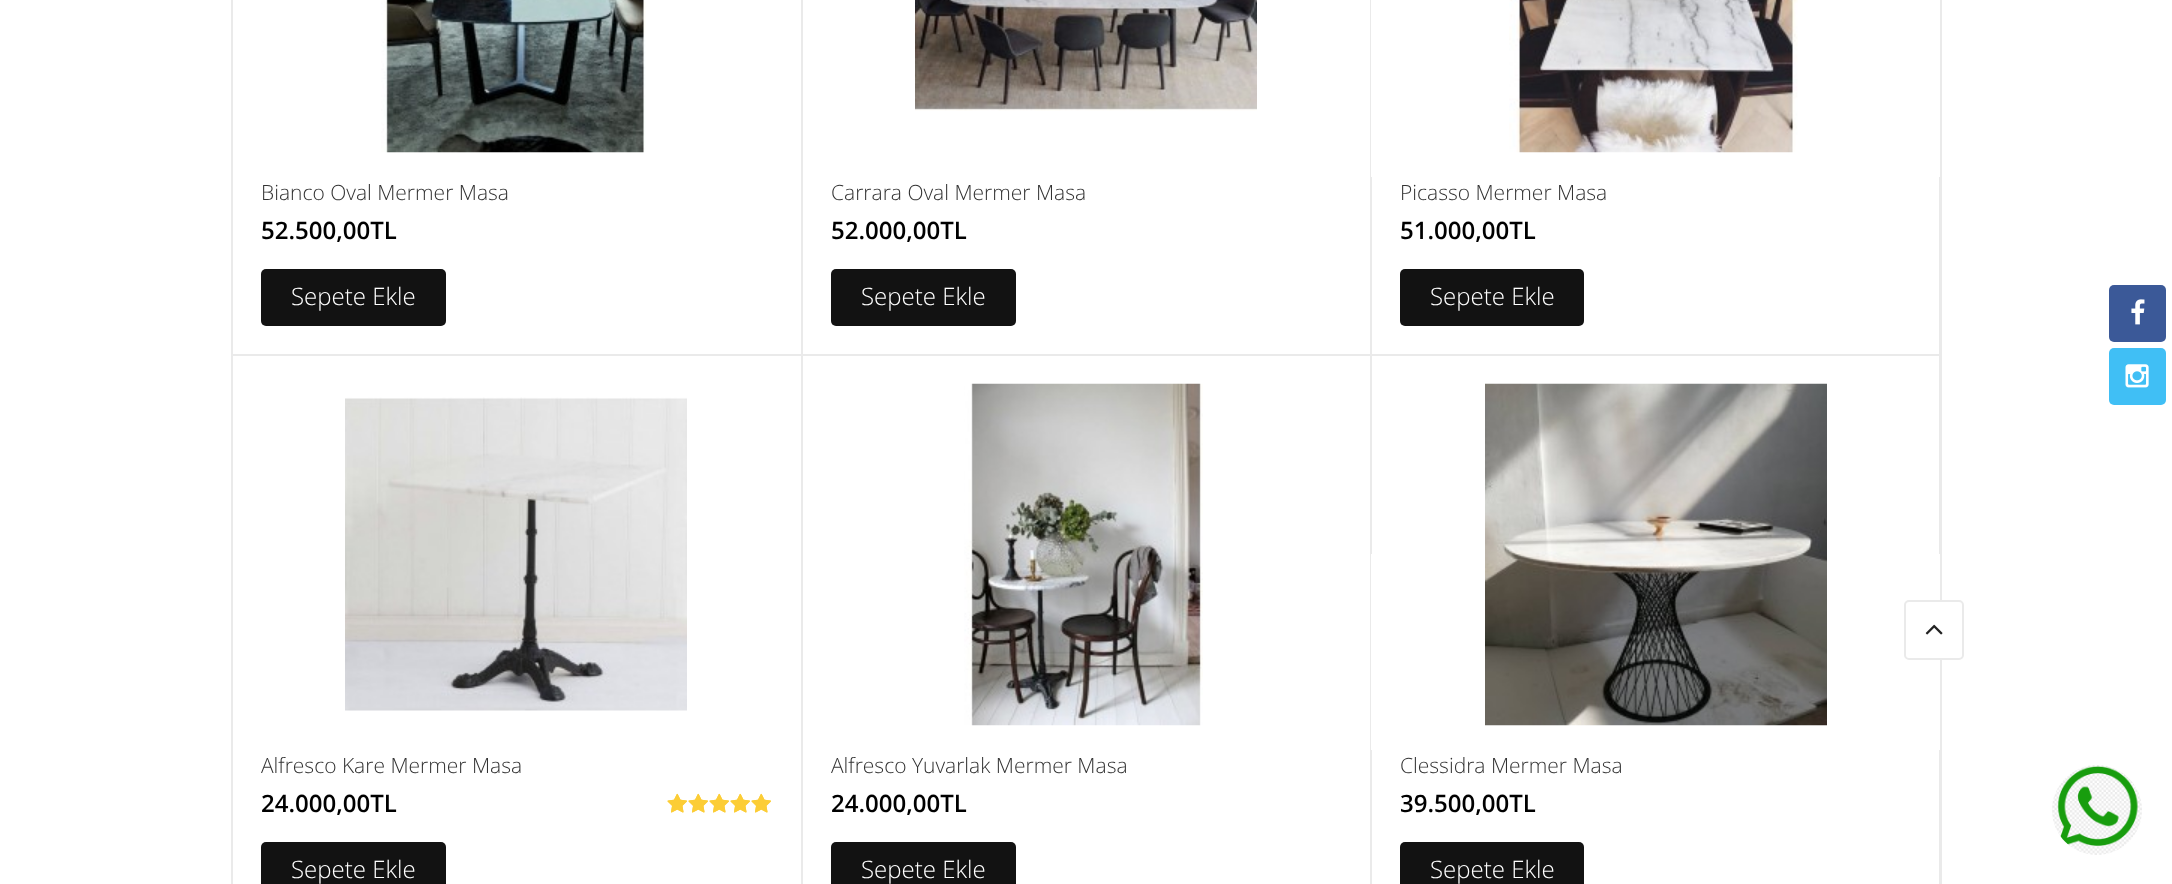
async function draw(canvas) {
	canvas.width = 2172;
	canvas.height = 884;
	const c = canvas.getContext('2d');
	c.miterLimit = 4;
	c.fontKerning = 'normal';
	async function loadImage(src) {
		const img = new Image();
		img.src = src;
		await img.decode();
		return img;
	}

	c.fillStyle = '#fff';
	c.fillRect(0, 0, 2172, 884);
	c.strokeStyle = '#eaeaea';
	c.lineWidth = 2;
	c.strokeRect(232, -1, 1708, 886);
	c.fillStyle = '#eaeaea';
	c.fillRect(801, 0, 2, 884);
	c.fillRect(233, 354, 570, 2);
	c.drawImage(await loadImage('img1.png'), 381, 0, 265, 153);
	c.font = '300 21px Open Sans';
	c.fillStyle = '#333';
	c.fillText('Bianco Oval Mermer Masa', 261, 200);
	c.font = '600 24px Open Sans';
	c.fillStyle = '#000';
	c.fillText('52.500,00TL', 261, 239);
	c.fillStyle = '#121212';
	c.beginPath();
	c.roundRect(261, 269, 185, 57, 5);
	c.fill();
	c.font = '300 24px Open Sans';
	c.fillStyle = '#fff';
	c.fillText('Sepete Ekle', 291, 305);
	c.fillStyle = '#eaeaea';
	c.fillRect(1370, 0, 2, 884);
	c.fillRect(803, 354, 1138, 2);
	c.drawImage(await loadImage('img2.png'), 915, 0, 342, 111);
	c.font = '300 21px Open Sans';
	c.fillStyle = '#333';
	c.fillText('Carrara Oval Mermer Masa', 831, 200);
	c.font = '600 24px Open Sans';
	c.fillStyle = '#000';
	c.fillText('52.000,00TL', 831, 239);
	c.fillStyle = '#121212';
	c.beginPath();
	c.roundRect(831, 269, 185, 57, 5);
	c.fill();
	c.font = '300 24px Open Sans';
	c.fillStyle = '#fff';
	c.fillText('Sepete Ekle', 861, 305);
	c.fillStyle = '#eaeaea';
	c.fillRect(1941, 0, 1, 884);
	c.fillStyle = '#fff';
	c.fillRect(1371, 0, 569, 177);
	c.drawImage(await loadImage('img3.png'), 1509, 0, 289, 153);
	c.font = '300 21px Open Sans';
	c.fillStyle = '#333';
	c.fillText('Picasso Mermer Masa', 1400, 200);
	c.font = '600 24px Open Sans';
	c.fillStyle = '#000';
	c.fillText('51.000,00TL', 1400, 239);
	c.fillStyle = '#121212';
	c.beginPath();
	c.roundRect(1400, 269, 184, 57, 5);
	c.fill();
	c.font = '300 24px Open Sans';
	c.fillStyle = '#fff';
	c.fillText('Sepete Ekle', 1430, 305);
	c.drawImage(await loadImage('img4.png'), 345, 397, 342, 314);
	c.font = '300 21px Open Sans';
	c.fillStyle = '#333';
	c.fillText('Alfresco Kare Mermer Masa', 261, 773);
	c.font = '600 24px Open Sans';
	c.fillStyle = '#000';
	c.fillText('24.000,00TL', 261, 812);
	c.drawImage(await loadImage('img5.png'), 667, 793, 20, 20);
	c.drawImage(await loadImage('img5.png'), 688, 793, 20, 20);
	c.drawImage(await loadImage('img5.png'), 709, 793, 20, 20);
	c.drawImage(await loadImage('img5.png'), 730, 793, 20, 20);
	c.drawImage(await loadImage('img5.png'), 751, 793, 20, 20);
	c.drawImage(await loadImage('img6.png'), 667, 793, 104, 20);
	c.fillStyle = '#121212';
	c.beginPath();
	c.roundRect(261, 842, 185, 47, 5);
	c.fill();
	c.font = '300 24px Open Sans';
	c.fillStyle = '#fff';
	c.fillText('Sepete Ekle', 291, 878);
	c.drawImage(await loadImage('img7.png'), 964, 383, 239, 343);
	c.font = '300 21px Open Sans';
	c.fillStyle = '#333';
	c.fillText('Alfresco Yuvarlak Mermer Masa', 831, 773);
	c.font = '600 24px Open Sans';
	c.fillStyle = '#000';
	c.fillText('24.000,00TL', 831, 812);
	c.fillStyle = '#121212';
	c.beginPath();
	c.roundRect(831, 842, 185, 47, 5);
	c.fill();
	c.font = '300 24px Open Sans';
	c.fillStyle = '#fff';
	c.fillText('Sepete Ekle', 861, 878);
	c.fillRect(1371, 554, 569, 196);
	c.drawImage(await loadImage('img8.png'), 1485, 383, 342, 343);
	c.font = '300 21px Open Sans';
	c.fillStyle = '#333';
	c.fillText('Clessidra Mermer Masa', 1400, 773);
	c.font = '600 24px Open Sans';
	c.fillStyle = '#000';
	c.fillText('39.500,00TL', 1400, 812);
	c.fillStyle = '#121212';
	c.beginPath();
	c.roundRect(1400, 842, 184, 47, 5);
	c.fill();
	c.font = '300 24px Open Sans';
	c.fillStyle = '#fff';
	c.fillText('Sepete Ekle', 1430, 878);
	c.beginPath();
	c.roundRect(1905, 601, 58, 58, 4);
	c.fill();
	c.stroke();
	c.drawImage(await loadImage('img9.png'), 1925, 624, 18, 11);
	c.fillStyle = '#3b5998';
	c.beginPath();
	c.roundRect(2109, 285, 57, 57, 5);
	c.fill();
	c.drawImage(await loadImage('img10.png'), 2131, 299, 14, 26);
	c.fillStyle = '#40bff5';
	c.beginPath();
	c.roundRect(2109, 348, 57, 57, 5);
	c.fill();
	c.drawImage(await loadImage('img11.png'), 2125, 364, 24, 24);
	c.drawImage(await loadImage('img12.png'), 2052, 765, 90, 90);
}

draw(document.querySelector('canvas'));
